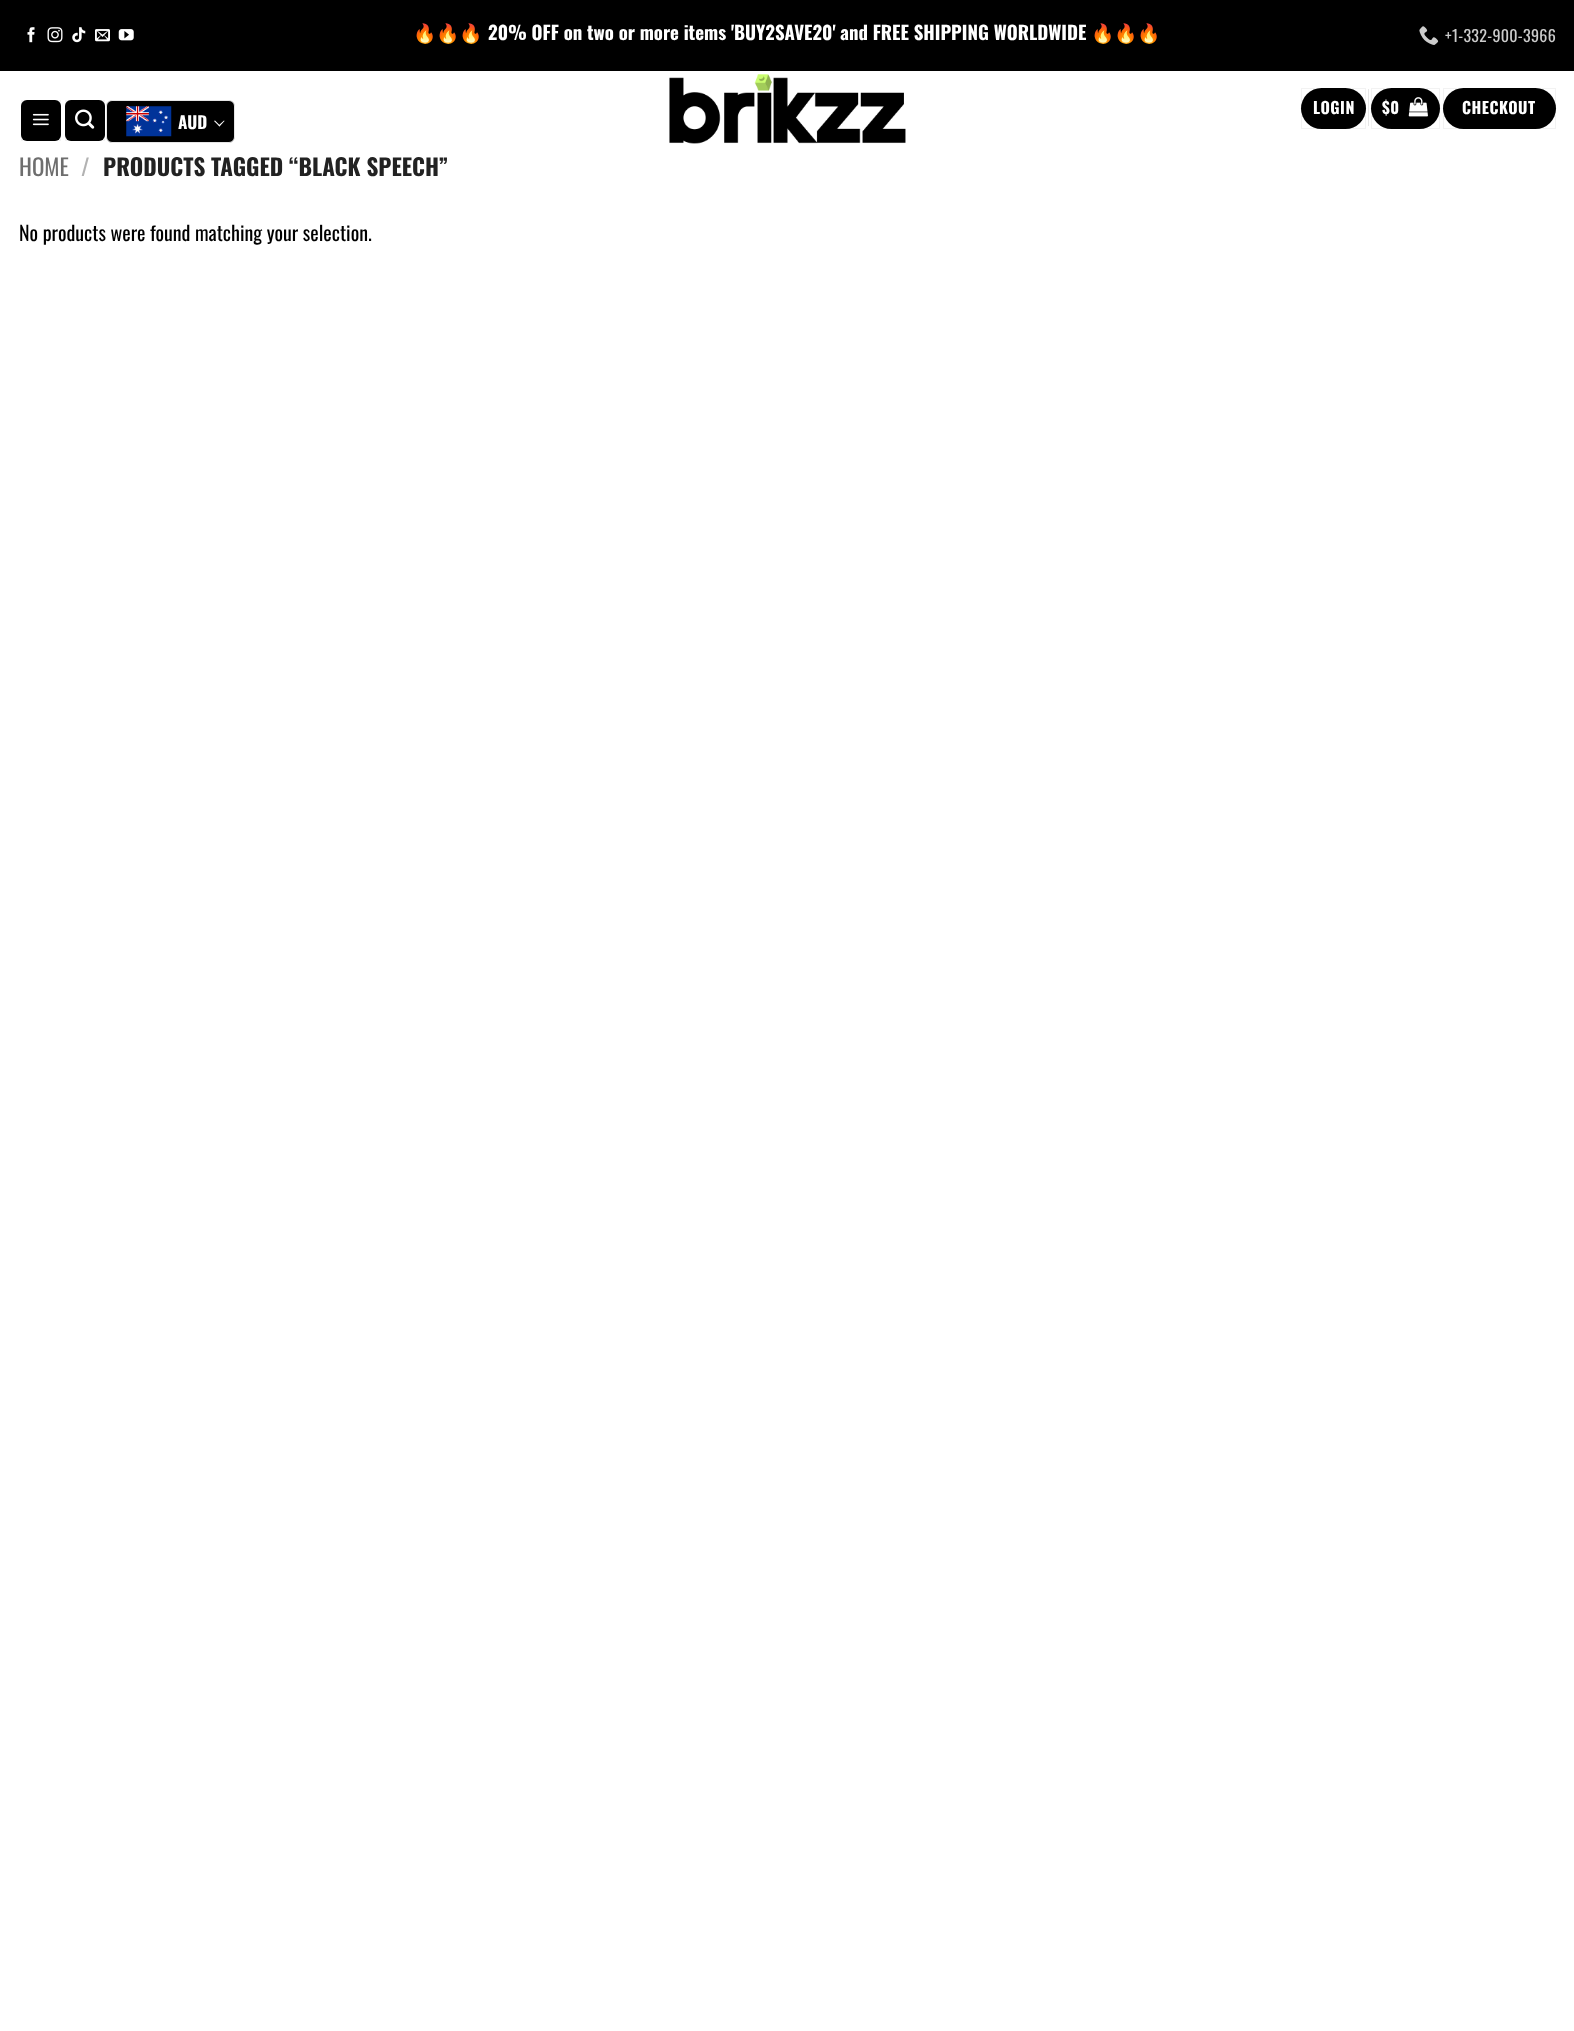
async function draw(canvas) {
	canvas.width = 1574;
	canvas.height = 2031;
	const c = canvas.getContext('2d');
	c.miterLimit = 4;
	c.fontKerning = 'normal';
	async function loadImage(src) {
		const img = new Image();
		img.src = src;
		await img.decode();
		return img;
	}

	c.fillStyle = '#fff';
	c.fillRect(0, 0, 1574, 2031);
	c.fillStyle = '#000';
	c.fillRect(0, 0, 1574, 71);
	c.drawImage(await loadImage('img1.png'), 27, 27, 8, 16);
	c.drawImage(await loadImage('img2.png'), 47, 27, 16, 16);
	c.drawImage(await loadImage('img3.png'), 72, 27, 14, 16);
	c.drawImage(await loadImage('img4.png'), 95, 29, 15, 13);
	c.drawImage(await loadImage('img5.png'), 118, 29, 16, 12);
	c.font = 'bold 18.75px Noto Color Emoji';
	c.fillStyle = '#fff';
	c.fillText('🔥🔥🔥', 413, 40);
	c.font = 'bold 18.75px Oswald';
	c.fillText('20% OFF on two or more items \'BUY2SAVE20\' and FREE SHIPPING WORLDWIDE', 488, 40);
	c.font = 'bold 18.75px Noto Color Emoji';
	c.fillText('🔥🔥🔥', 1091, 40);
	c.drawImage(await loadImage('img6.png'), 1419, 26, 20, 19);
	c.letterSpacing = '0.3px';
	c.font = '16px Oswald';
	c.fillStyle = '#ccc';
	c.fillText('+1-332-900-3966', 1445, 42);
	c.drawImage(await loadImage('img7.png'), 669, 74, 237, 70);
	c.fillStyle = '#000';
	c.beginPath();
	c.roundRect(1301, 88, 65, 41, 20.5);
	c.fill();
	c.strokeStyle = '#0000000d';
	c.strokeRect(1301.5, 88.5, 64, 40);
	c.letterSpacing = '0.5px';
	c.font = 'bold 16px Oswald';
	c.fillStyle = '#fff';
	c.fillText('LOGIN', 1313, 114);
	c.fillStyle = '#e6e6e6';
	c.fillRect(1368, 89, 1, 37);
	c.fillStyle = '#000';
	c.beginPath();
	c.roundRect(1371, 88, 69, 41, 20.5);
	c.fill();
	c.strokeRect(1371.5, 88.5, 68, 40);
	c.fillStyle = '#fff';
	c.fillText('$0', 1382, 114);
	c.drawImage(await loadImage('img8.png'), 1408, 97, 20, 20);
	c.fillStyle = '#000';
	c.beginPath();
	c.roundRect(1443, 88, 113, 41, 20.5);
	c.fill();
	c.strokeRect(1443.5, 88.5, 112, 40);
	c.fillStyle = '#fff';
	c.fillText('CHECKOUT', 1462, 114);
	c.fillStyle = '#000';
	c.beginPath();
	c.roundRect(21, 100, 40, 41, 6);
	c.fill();
	c.strokeRect(21.5, 100.5, 39, 40);
	c.drawImage(await loadImage('img9.png'), 32, 113, 17, 13);
	c.beginPath();
	c.roundRect(65, 100, 40, 41, 6);
	c.fill();
	c.strokeRect(65.5, 100.5, 39, 40);
	c.drawImage(await loadImage('img10.png'), 75, 109, 20, 20);
	c.beginPath();
	c.roundRect(106.5, 100.5, 128, 42, 5.5);
	c.fill();
	c.strokeStyle = '#e5e5e5';
	c.stroke();
	c.drawImage(await loadImage('img11.png'), 126, 106, 46, 31);
	c.letterSpacing = '0px';
	c.font = 'bold 17px Oswald';
	c.fillStyle = '#fff';
	c.fillText('AUD', 178, 129);
	c.beginPath();
	c.moveTo(224, 120.5);
	c.lineTo(224.5, 121);
	c.lineTo(219.5, 126.5);
	c.lineTo(218.5, 125.5);
	c.closePath();
	c.fill();
	c.beginPath();
	c.moveTo(215, 120.5);
	c.lineTo(220, 125.5);
	c.lineTo(219.5, 126.5);
	c.lineTo(214, 121);
	c.closePath();
	c.fill();
	c.font = '23px Oswald';
	c.fillStyle = '#6e6e6e';
	c.fillText('HOME', 19, 176);
	c.fillStyle = '#b2b2b2';
	c.fillText('/', 81, 176);
	c.font = 'bold 23px Oswald';
	c.fillStyle = '#222';
	c.fillText('PRODUCTS TAGGED “BLACK SPEECH”', 103, 176);
	c.font = '20px Oswald';
	c.fillStyle = '#000';
	c.fillText('No products were found matching your selection.', 19, 241);
}

draw(document.querySelector('canvas'));
